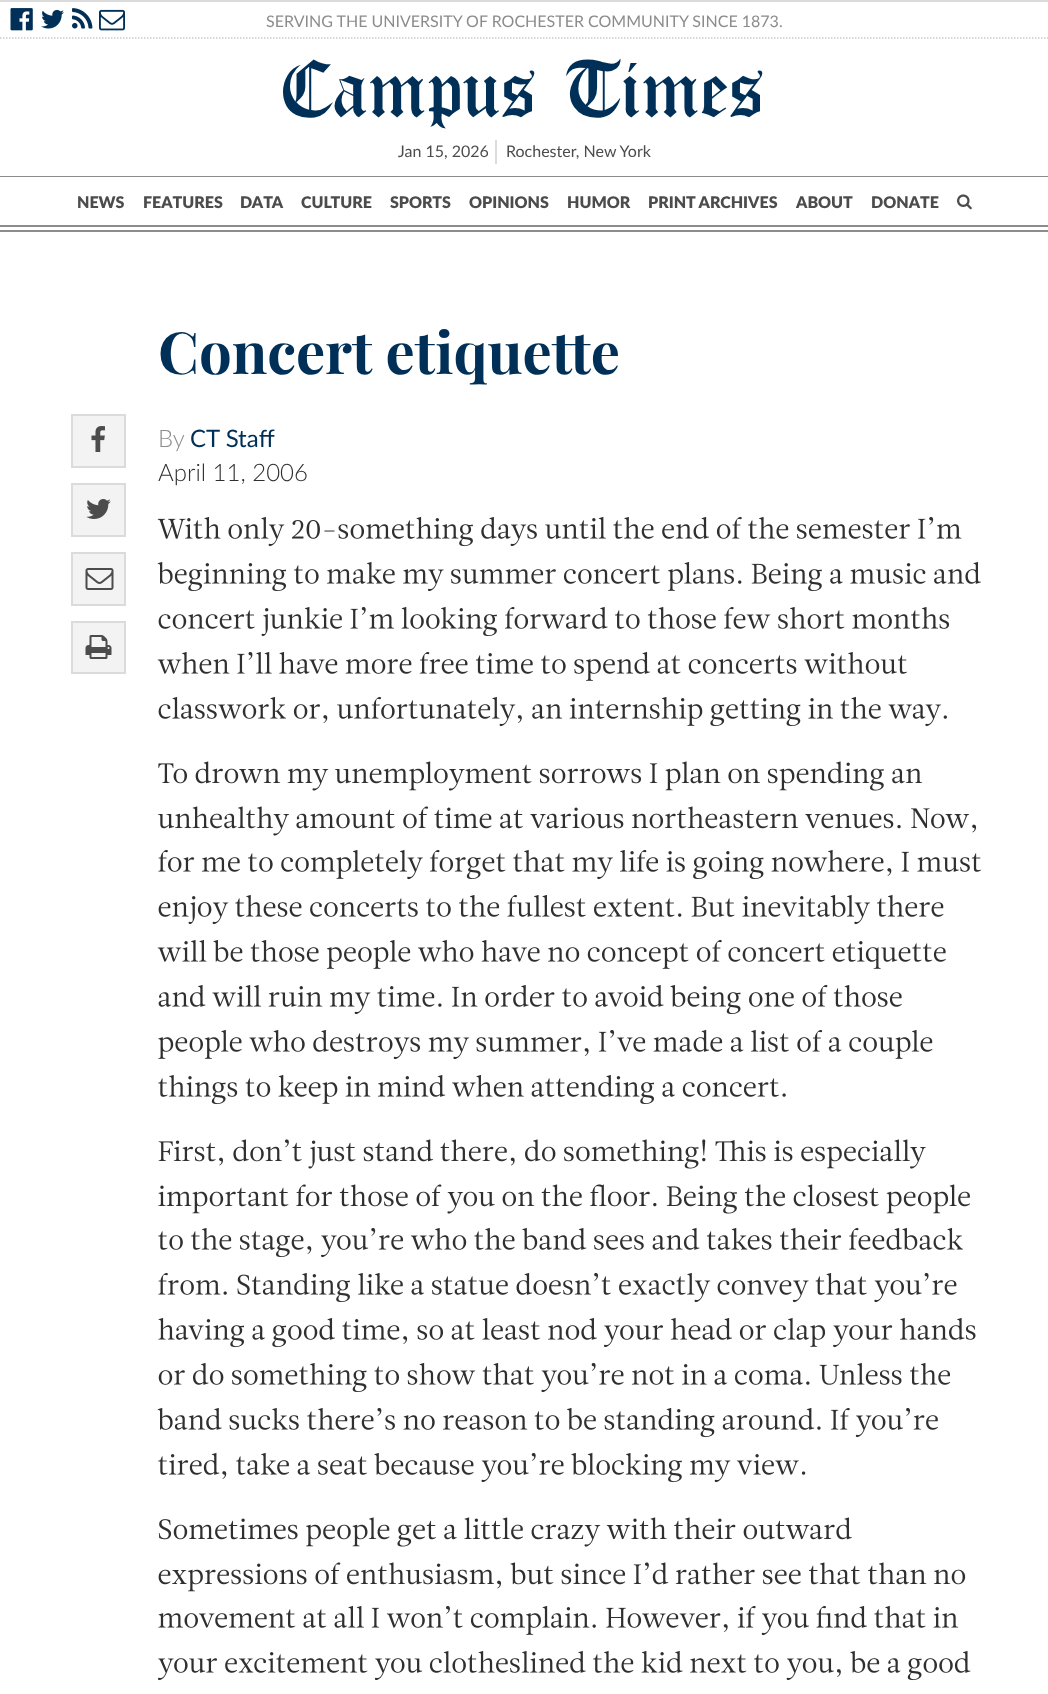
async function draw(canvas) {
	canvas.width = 1048;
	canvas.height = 1694;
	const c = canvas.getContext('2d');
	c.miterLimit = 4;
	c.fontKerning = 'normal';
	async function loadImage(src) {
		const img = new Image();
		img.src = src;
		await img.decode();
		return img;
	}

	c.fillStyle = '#fff';
	c.fillRect(0, 0, 1048, 1694);
	c.fillStyle = '#dbdbdb';
	c.fillRect(0, 0, 1048, 2);
	c.beginPath();
	c.moveTo(0, 38);
	c.lineTo(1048.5, 38);
	c.strokeStyle = '#ccc';
	c.lineWidth = 1.5;
	c.setLineDash([1.5, 1.5]);
	c.stroke();
	c.drawImage(await loadImage('img1.png'), 10, 8, 23, 23);
	c.drawImage(await loadImage('img2.png'), 41, 9, 23, 20);
	c.drawImage(await loadImage('img3.png'), 72, 8, 21, 21);
	c.drawImage(await loadImage('img4.png'), 99, 9, 26, 22);
	c.font = '16px Lato';
	c.fillStyle = '#8c8c8c';
	c.fillText('SERVING THE UNIVERSITY OF ROCHESTER COMMUNITY SINCE 1873.', 266, 27);
	c.font = '88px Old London';
	c.fillStyle = '#003057';
	c.fillText('Campus Times', 283, 117);
	c.fillStyle = '#dbdbdb';
	c.fillRect(495, 140, 2, 24);
	c.font = '16px Lato';
	c.fillStyle = '#4c4c4c';
	c.fillText('Jan 15, 2026', 398, 157);
	c.fillText('Rochester, New York', 506, 157);
	c.fillStyle = '#8c8c8c';
	c.fillRect(0, 176, 1048, 1);
	c.fillRect(0, 225, 1048, 2);
	c.font = '900 16px Lato';
	c.fillStyle = '#4c4c4c';
	for (const [text, x, y] of [
		['NEWS', 77, 208],
		['FEATURES', 143, 208],
		['DATA', 240, 208],
		['CULTURE', 301, 208],
		['SPORTS', 390, 208],
		['OPINIONS', 469, 208],
		['HUMOR', 567, 208],
		['PRINT ARCHIVES', 648, 208],
		['ABOUT', 796, 208],
		['DONATE', 871, 208],
	]) {
		c.fillText(text, x, y);
	}
	c.drawImage(await loadImage('img5.png'), 957, 194, 15, 16);
	c.fillStyle = '#8c8c8c';
	c.fillRect(0, 230, 1048, 2);
	c.font = 'bold 58px Playfair Display';
	c.fillStyle = '#003057';
	c.fillText('Concert etiquette', 158, 374);
	c.fillStyle = '#f3f3f3';
	c.beginPath();
	c.rect(72, 415, 53, 52);
	c.fill();
	c.strokeStyle = '#dbdbdb';
	c.lineWidth = 2;
	c.setLineDash([]);
	c.stroke();
	c.drawImage(await loadImage('img6.png'), 91, 426, 14, 26);
	c.beginPath();
	c.rect(72, 484, 53, 52);
	c.fill();
	c.stroke();
	c.drawImage(await loadImage('img7.png'), 86, 499, 25, 20);
	c.beginPath();
	c.rect(72, 553, 53, 52);
	c.fill();
	c.stroke();
	c.drawImage(await loadImage('img8.png'), 85, 568, 29, 22);
	c.beginPath();
	c.rect(72, 622, 53, 51);
	c.fill();
	c.stroke();
	c.drawImage(await loadImage('img9.png'), 85, 635, 27, 24);
	c.font = '300 24px Lato';
	c.fillStyle = '#8c8c8c';
	c.fillText('By', 158, 447);
	c.font = '24px Lato';
	c.fillStyle = '#003057';
	c.fillText('CT Staff', 190, 447);
	c.font = '300 24px Lato';
	c.fillStyle = '#2f2f2f';
	c.fillText('April 11, 2006', 158, 481);
	c.drawImage(await loadImage('img10.png'), 157, 516, 805, 31);
	c.drawImage(await loadImage('img11.png'), 157, 561, 824, 31);
	c.drawImage(await loadImage('img12.png'), 158, 606, 792, 31);
	c.drawImage(await loadImage('img13.png'), 157, 651, 751, 30);
	c.drawImage(await loadImage('img14.png'), 158, 696, 789, 31);
	c.drawImage(await loadImage('img15.png'), 158, 761, 765, 30);
	c.drawImage(await loadImage('img16.png'), 158, 806, 819, 30);
	c.drawImage(await loadImage('img17.png'), 158, 849, 824, 31);
	c.drawImage(await loadImage('img18.png'), 158, 894, 786, 31);
	c.drawImage(await loadImage('img19.png'), 157, 939, 789, 30);
	c.drawImage(await loadImage('img20.png'), 158, 984, 744, 31);
	c.drawImage(await loadImage('img21.png'), 158, 1029, 775, 31);
	c.drawImage(await loadImage('img22.png'), 158, 1074, 628, 31);
	c.drawImage(await loadImage('img23.png'), 158, 1139, 768, 30);
	c.drawImage(await loadImage('img24.png'), 158, 1184, 812, 30);
	c.drawImage(await loadImage('img25.png'), 158, 1227, 805, 31);
	c.drawImage(await loadImage('img26.png'), 158, 1272, 799, 31);
	c.drawImage(await loadImage('img27.png'), 158, 1317, 818, 31);
	c.drawImage(await loadImage('img28.png'), 158, 1362, 793, 31);
	c.drawImage(await loadImage('img29.png'), 157, 1407, 781, 31);
	c.drawImage(await loadImage('img30.png'), 158, 1452, 648, 31);
	c.drawImage(await loadImage('img31.png'), 158, 1517, 694, 30);
	c.drawImage(await loadImage('img32.png'), 158, 1562, 808, 30);
	c.drawImage(await loadImage('img33.png'), 158, 1605, 801, 31);
	c.drawImage(await loadImage('img34.png'), 158, 1650, 813, 31);
}

draw(document.querySelector('canvas'));
